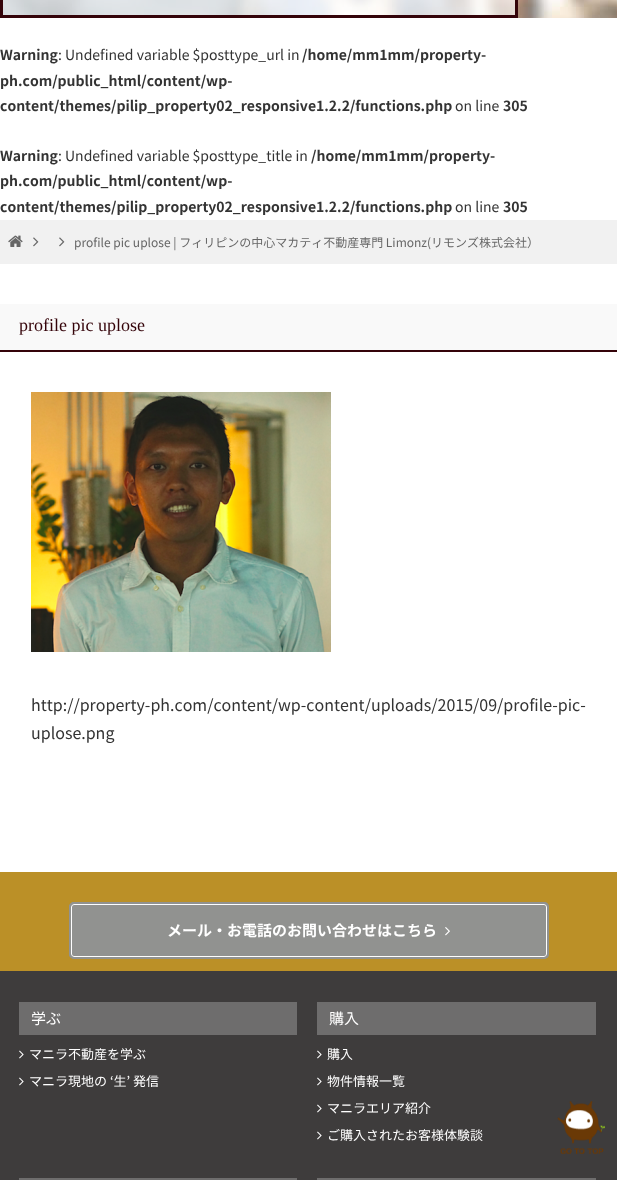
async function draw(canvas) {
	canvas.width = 617;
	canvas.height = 1180;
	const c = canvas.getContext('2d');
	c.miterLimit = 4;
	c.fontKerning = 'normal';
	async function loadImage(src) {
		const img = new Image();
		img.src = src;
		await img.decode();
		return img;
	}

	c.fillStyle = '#fff';
	c.fillRect(0, 0, 617, 1180);
	c.drawImage(await loadImage('img1.png'), 3, 0, 614, 18);
	c.fillStyle = '#ffffffb3';
	c.beginPath();
	c.rect(1.5, -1.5, 515, 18);
	c.fill();
	c.strokeStyle = '#340309';
	c.lineWidth = 3;
	c.stroke();
	c.font = 'bold 14px Noto Sans CJK JP';
	c.fillStyle = '#333';
	c.fillText('Warning', 0, 60);
	c.font = '14px Noto Sans CJK JP';
	c.fillText(': Undefined variable $posttype_url in', 58, 60);
	c.font = 'bold 14px Noto Sans CJK JP';
	for (const [text, x, y] of [
		['/home/mm1mm/property-', 302, 60],
		['ph.com/public_html/content/wp-', 0, 86],
		['content/themes/pilip_property02_responsive1.2.2/functions.php', 0, 111],
	]) {
		c.fillText(text, x, y);
	}
	c.font = '14px Noto Sans CJK JP';
	c.fillText('on line', 455, 111);
	c.font = 'bold 14px Noto Sans CJK JP';
	c.fillText('305', 503, 111);
	c.fillText('Warning', 0, 161);
	c.font = '14px Noto Sans CJK JP';
	c.fillText(': Undefined variable $posttype_title in', 58, 161);
	c.font = 'bold 14px Noto Sans CJK JP';
	for (const [text, x, y] of [
		['/home/mm1mm/property-', 311, 161],
		['ph.com/public_html/content/wp-', 0, 186],
		['content/themes/pilip_property02_responsive1.2.2/functions.php', 0, 212],
	]) {
		c.fillText(text, x, y);
	}
	c.font = '14px Noto Sans CJK JP';
	c.fillText('on line', 455, 212);
	c.font = 'bold 14px Noto Sans CJK JP';
	c.fillText('305', 503, 212);
	c.fillStyle = '#f1f1f1';
	c.fillRect(0, 220, 617, 44);
	c.drawImage(await loadImage('img2.png'), 8, 235, 15, 12);
	c.drawImage(await loadImage('img3.png'), 33, 237, 6, 10);
	c.drawImage(await loadImage('img3.png'), 59, 237, 6, 10);
	c.font = '12px Noto Sans CJK JP';
	c.fillStyle = '#666';
	c.fillText('profile pic uplose | フィリピンの中心マカティ不動産専門 Limonz(リモンズ株式会社）', 74, 247);
	c.fillStyle = '#f9f9f9';
	c.fillRect(0, 304, 617, 46);
	c.fillStyle = '#340309';
	c.fillRect(0, 350, 617, 2);
	c.font = '18px Liberation Serif';
	c.fillText('profile pic uplose', 19, 331);
	c.drawImage(await loadImage('img4.png'), 31, 392, 300, 260);
	c.font = '16px Noto Sans CJK JP';
	c.fillStyle = '#333';
	c.fillText('http://property-ph.com/content/wp-content/uploads/2015/09/profile-pic-', 31, 711);
	c.fillText('uplose.png', 31, 739);
	c.fillStyle = '#bb9027';
	c.fillRect(0, 872, 617, 99);
	c.fillStyle = '#919290';
	c.beginPath();
	c.roundRect(69, 902, 480, 57, 5);
	c.fill();
	c.beginPath();
	c.roundRect(71.5, 904.5, 475, 52, 2.5);
	c.strokeStyle = '#fff';
	c.lineWidth = 1;
	c.stroke();
	c.beginPath();
	c.roundRect(70, 903, 478, 55, 4);
	c.strokeStyle = '#919290';
	c.lineWidth = 2;
	c.stroke();
	c.font = 'bold 15px Noto Sans CJK JP';
	c.fillStyle = '#fff';
	c.fillText('メール・お電話のお問い合わせはこちら', 167, 936);
	c.drawImage(await loadImage('img5.png'), 445, 927, 5, 9);
	c.fillStyle = '#3e3c3c';
	c.fillRect(0, 971, 617, 209);
	c.fillStyle = '#6e6d6d';
	c.fillRect(19, 1002, 278, 33);
	c.font = '15px Noto Sans CJK JP';
	c.fillStyle = '#fff';
	c.fillText('学ぶ', 31, 1024);
	c.drawImage(await loadImage('img6.png'), 19, 1050, 5, 9);
	c.font = '13px Noto Sans CJK JP';
	c.fillText('マニラ不動産を学ぶ', 29, 1059);
	c.drawImage(await loadImage('img6.png'), 19, 1077, 5, 9);
	c.fillText('マニラ現地の ‘生’ 発信', 29, 1086);
	c.fillStyle = '#6e6d6d';
	c.fillRect(317, 1002, 279, 33);
	c.font = '15px Noto Sans CJK JP';
	c.fillStyle = '#fff';
	c.fillText('購入', 329, 1024);
	c.drawImage(await loadImage('img6.png'), 317, 1050, 5, 9);
	c.font = '13px Noto Sans CJK JP';
	c.fillText('購入', 327, 1059);
	c.drawImage(await loadImage('img6.png'), 317, 1077, 5, 9);
	c.fillText('物件情報一覧', 327, 1086);
	c.drawImage(await loadImage('img6.png'), 317, 1104, 5, 9);
	c.fillText('マニラエリア紹介', 327, 1113);
	c.drawImage(await loadImage('img6.png'), 317, 1131, 5, 9);
	c.fillText('ご購入されたお客様体験談', 327, 1140);
	c.fillStyle = '#6e6d6d';
	c.fillRect(19, 1178, 278, 2);
	c.fillRect(317, 1178, 279, 2);
	c.drawImage(await loadImage('img7.png'), 557, 1101, 48, 53);
}

draw(document.querySelector('canvas'));
